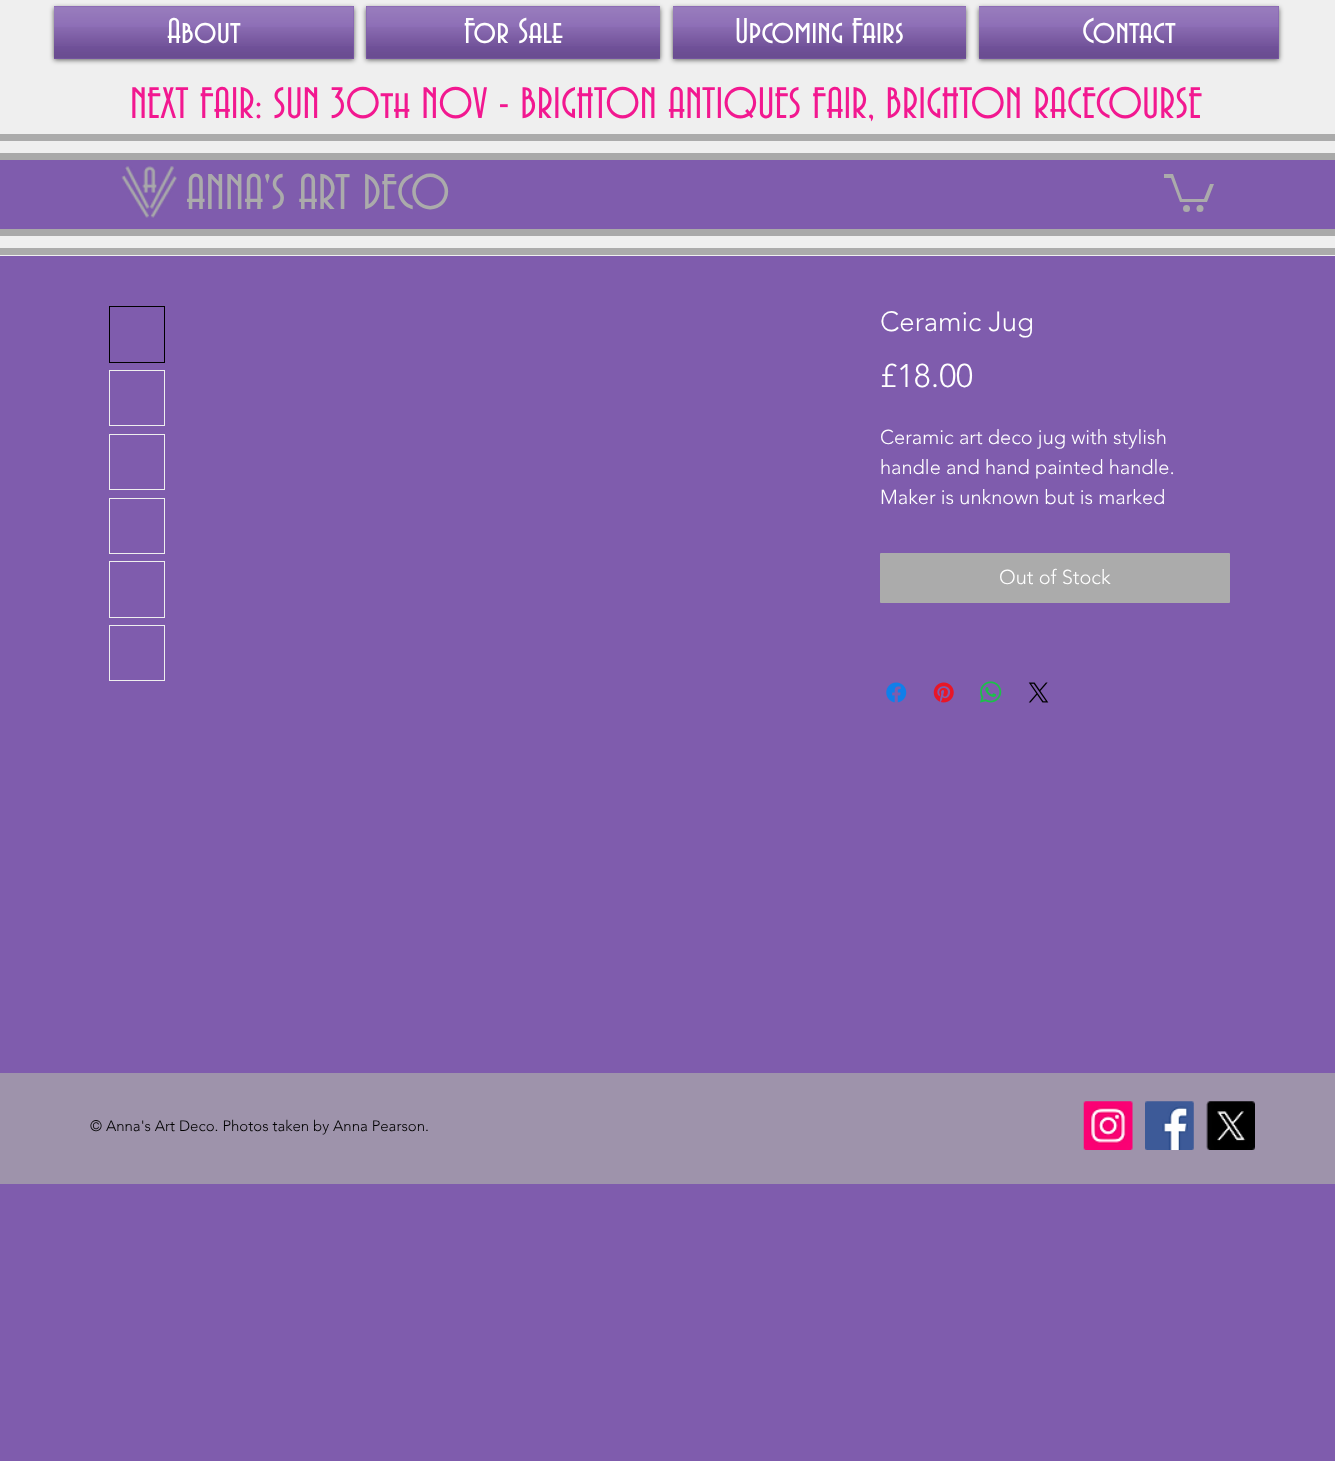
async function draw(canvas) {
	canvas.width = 1335;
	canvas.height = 1461;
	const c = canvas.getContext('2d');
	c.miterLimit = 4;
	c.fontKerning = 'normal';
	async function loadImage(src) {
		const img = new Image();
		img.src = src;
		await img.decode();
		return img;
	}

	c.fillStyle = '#7f5cad';
	c.fillRect(0, 0, 1335, 1461);
	c.fillStyle = '#efefef';
	c.fillRect(0, 0, 1335, 256);
	c.fillStyle = '#00000099';
	c.filter = 'blur(2.5px)';
	c.beginPath();
	c.rect(54, 8, 300, 52);
	c.fill();
	c.filter = 'none';
	c.fillStyle = '#7f5cad';
	c.fillRect(54, 6, 300, 53);
	c.drawImage(await loadImage('img1.png'), 54, 6, 300, 40);
	c.drawImage(await loadImage('img2.png'), 54, 27, 300, 32);
	c.font = '37.5px "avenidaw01"';
	c.fillStyle = '#fff';
	c.fillText('About', 167, 43);
	c.fillStyle = '#00000099';
	c.filter = 'blur(2.5px)';
	c.beginPath();
	c.rect(366, 8, 294, 52);
	c.fill();
	c.filter = 'none';
	c.fillStyle = '#7f5cad';
	c.fillRect(366, 6, 294, 53);
	c.drawImage(await loadImage('img3.png'), 366, 6, 294, 40);
	c.drawImage(await loadImage('img4.png'), 366, 27, 294, 32);
	c.fillStyle = '#fff';
	c.fillText('For Sale', 464, 43);
	c.fillStyle = '#00000099';
	c.filter = 'blur(2.5px)';
	c.beginPath();
	c.rect(673, 8, 293, 52);
	c.fill();
	c.filter = 'none';
	c.fillStyle = '#7f5cad';
	c.fillRect(673, 6, 293, 53);
	c.drawImage(await loadImage('img5.png'), 673, 6, 293, 40);
	c.drawImage(await loadImage('img6.png'), 672, 27, 294, 32);
	c.fillStyle = '#fff';
	c.fillText('Upcoming Fairs', 735, 43);
	c.fillStyle = '#00000099';
	c.filter = 'blur(2.5px)';
	c.beginPath();
	c.rect(979, 8, 300, 52);
	c.fill();
	c.filter = 'none';
	c.fillStyle = '#7f5cad';
	c.fillRect(979, 6, 300, 53);
	c.drawImage(await loadImage('img1.png'), 979, 6, 300, 40);
	c.drawImage(await loadImage('img2.png'), 979, 27, 300, 32);
	c.fillStyle = '#fff';
	c.fillText('Contact', 1082, 43);
	c.font = '46.25px "avenidaw01"';
	c.fillStyle = '#f21890';
	c.fillText('NEXT FAIR: SUN 30th NOV - BRIGHTON ANTIQUES FAIR, BRIGHTON RACECOURSE', 130, 118);
	for (const [x, y, w, h, color] of [
		[0, 134, 1335, 7, '#ababab'],
		[0, 248, 1335, 7, '#ababab'],
		[0, 153, 1335, 7, '#a9a9a9'],
		[0, 229, 1335, 7, '#a9a9a9'],
		[0, 160, 1335, 69, '#7f5cad'],
	]) {
		c.fillStyle = color;
		c.fillRect(x, y, w, h);
	}
	c.drawImage(await loadImage('img7.png'), 121, 166, 56, 52);
	c.font = '52.5px "avenidaw01"';
	c.fillStyle = '#ababab';
	c.fillText('ANNA\'S ART DECO', 186, 209);
	c.beginPath();
	c.moveTo(1214, 184);
	c.lineTo(1207, 202);
	c.lineTo(1180, 202);
	c.lineTo(1171, 178);
	c.lineTo(1164, 178);
	c.lineTo(1164, 174);
	c.lineTo(1173, 174);
	c.lineTo(1182, 199);
	c.lineTo(1204, 199);
	c.lineTo(1210, 184);
	c.fill();
	c.beginPath();
	c.arc(1200, 208.5, 3.5, 0, 2 * Math.PI);
	c.fill();
	c.beginPath();
	c.arc(1186.5, 208.5, 3.5, 0, 2 * Math.PI);
	c.fill();
	c.strokeStyle = '#000';
	c.strokeRect(109.5, 306.5, 55, 56);
	c.strokeStyle = '#efefef';
	c.strokeRect(109.5, 370.5, 55, 55);
	c.strokeRect(109.5, 434.5, 55, 55);
	c.strokeRect(109.5, 498.5, 55, 55);
	c.strokeRect(109.5, 561.5, 55, 56);
	c.strokeRect(109.5, 625.5, 55, 55);
	c.font = '300 27.5px "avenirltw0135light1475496"';
	c.fillStyle = '#fff';
	c.fillText('Ceramic Jug', 880, 331);
	c.font = '300 32.5px "avenirltw0135light1475496"';
	c.fillText('£18.00', 880, 387);
	c.font = '300 20px "avenirltw0135light1475496"';
	for (const [text, x, y] of [
		['Ceramic art deco jug with stylish', 880, 444],
		['handle and hand painted handle.', 880, 474],
		['Maker is unknown but is marked', 880, 504],
	]) {
		c.fillText(text, x, y);
	}
	c.fillStyle = '#ababab';
	c.beginPath();
	c.roundRect(880, 553, 350, 50, 1);
	c.fill();
	c.fillStyle = '#fff';
	c.fillText('Out of Stock', 999, 584);
	c.drawImage(await loadImage('img8.png'), 886, 682, 21, 21);
	c.drawImage(await loadImage('img9.png'), 933, 682, 21, 21);
	c.drawImage(await loadImage('img10.png'), 980, 681, 22, 22);
	c.drawImage(await loadImage('img11.png'), 1028, 682, 21, 21);
	c.fillStyle = '#9e93ab';
	c.fillRect(0, 1073, 1335, 111);
	c.font = '300 15px "avenirltw0135light1475496"';
	c.fillStyle = '#000';
	c.fillText('© Anna\'s Art Deco. Photos taken by Anna Pearson.', 90, 1131);
	c.drawImage(await loadImage('img12.png'), 1083, 1101, 50, 49);
	c.drawImage(await loadImage('img13.png'), 1145, 1101, 49, 49);
	c.drawImage(await loadImage('img14.png'), 1206, 1101, 49, 49);
}

draw(document.querySelector('canvas'));
